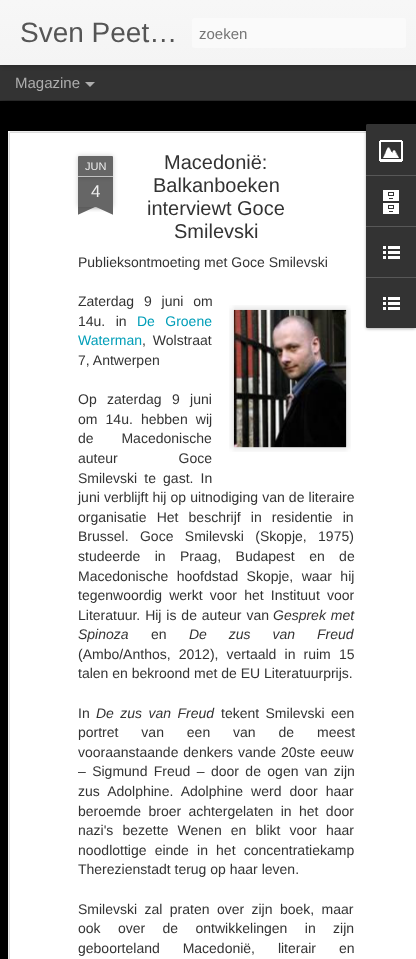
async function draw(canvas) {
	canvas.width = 416;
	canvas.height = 959;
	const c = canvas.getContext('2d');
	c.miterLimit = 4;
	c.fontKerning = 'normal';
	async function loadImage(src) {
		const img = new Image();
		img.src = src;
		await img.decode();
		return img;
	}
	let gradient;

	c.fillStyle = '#333';
	c.fillRect(0, 0, 416, 959);
	c.fillStyle = '#000';
	c.fillRect(0, 101, 416, 858);
	c.fillStyle = '#00000080';
	c.filter = 'blur(4px)';
	c.beginPath();
	c.rect(0, 65, 416, 35);
	c.fill();
	c.filter = 'none';
	c.fillStyle = '#333';
	c.fillRect(0, 65, 416, 35);
	c.fillStyle = '#0000004d';
	c.filter = 'blur(2.5px)';
	c.beginPath();
	c.rect(0, 0, 416, 65);
	c.fill();
	c.filter = 'none';
	gradient = c.createLinearGradient(0, 0, 0, 65);
	gradient.addColorStop(0, '#f7f7f7');
	gradient.addColorStop(1, '#f4f4f4');
	c.fillStyle = gradient;
	c.fillRect(0, 0, 416, 65);
	c.font = '28px Liberation Sans';
	c.fillStyle = '#555';
	c.fillText('Sven Peet…', 20, 42);
	c.fillStyle = '#fafafa';
	c.beginPath();
	c.roundRect(192, 18, 214, 30, 3);
	c.fill();
	c.font = '15px Liberation Sans';
	c.fillStyle = '#757575';
	c.fillText('zoeken', 199, 39);
	c.fillStyle = '#adadad';
	c.fillText('Magazine', 15, 88);
	c.beginPath();
	c.moveTo(85, 82);
	c.lineTo(95, 82);
	c.lineTo(90, 87);
	c.closePath();
	c.fill();
	c.fillStyle = '#fff';
	c.fillRect(8, 131, 408, 828);
	c.drawImage(await loadImage('img1.png'), 8, 131, 358, 828);
	c.fillStyle = '#00000033';
	c.filter = 'blur(2.5px)';
	c.beginPath();
	c.rect(78, 177, 35, 30);
	c.fill();
	c.filter = 'none';
	c.fillStyle = '#666';
	c.fillRect(78, 177, 35, 30);
	c.fillStyle = '#00000033';
	c.filter = 'blur(2.5px)';
	c.beginPath();
	c.roundRect(78, 156, 35, 21, 1);
	c.fill();
	c.filter = 'none';
	c.fillStyle = '#666';
	c.beginPath();
	c.roundRect(78, 156, 35, 21, [1, 1, 0, 0]);
	c.fill();
	c.fillStyle = '#c2c2c2';
	c.fillRect(78, 176, 35, 1);
	c.font = '11px Liberation Sans';
	c.fillStyle = '#eee';
	c.fillText('JUN', 85, 170);
	c.font = '17px Liberation Sans';
	c.fillText('4', 91, 197);
	c.save();
	c.beginPath();
	c.rect(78, 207, 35, 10);
	c.clip();
	c.fillStyle = '#00000033';
	c.filter = 'blur(2.5px)';
	c.beginPath();
	c.rect(69, 197, 50, 10);
	c.fill();
	c.filter = 'none';
	c.restore();
	c.save();
	c.beginPath();
	c.rect(78, 207, 35, 10);
	c.clip();
	c.fillStyle = '#666';
	c.beginPath();
	c.moveTo(69, 208);
	c.lineTo(115, 187);
	c.lineTo(119, 196);
	c.lineTo(73, 217);
	c.closePath();
	c.fill();
	c.restore();
	c.save();
	c.beginPath();
	c.rect(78, 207, 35, 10);
	c.clip();
	c.fillStyle = '#00000033';
	c.filter = 'blur(2.5px)';
	c.beginPath();
	c.rect(72, 197, 50, 10);
	c.fill();
	c.filter = 'none';
	c.restore();
	c.save();
	c.beginPath();
	c.rect(78, 207, 35, 10);
	c.clip();
	c.fillStyle = '#666';
	c.beginPath();
	c.moveTo(76, 187);
	c.lineTo(122, 208);
	c.lineTo(118, 217);
	c.lineTo(72, 196);
	c.closePath();
	c.fill();
	c.restore();
	c.font = '20px Liberation Sans';
	c.fillStyle = '#333';
	for (const [text, x, y] of [
		['Macedonië:', 164, 169],
		['Balkanboeken', 153, 192],
		['interviewt Goce', 147, 215],
		['Smilevski', 174, 238],
	]) {
		c.fillText(text, x, y);
	}
	c.font = '14px Liberation Sans';
	c.fillText('Publieksontmoeting met Goce Smilevski', 78, 267);
	c.wordSpacing = '6px';
	c.fillText('Zaterdag 9 juni om', 78, 306);
	c.wordSpacing = '6.5px';
	c.fillText('14u. in', 78, 326);
	c.fillStyle = '#009eb8';
	c.fillText('De Groene', 137, 326);
	c.drawImage(await loadImage('img2.png'), 229, 305, 122, 147);
	c.drawImage(await loadImage('img3.png'), 233, 309, 114, 139);
	c.wordSpacing = '0px';
	c.fillText('Waterman', 78, 345);
	c.wordSpacing = '3px';
	c.fillStyle = '#333';
	c.fillText(', Wolstraat', 142, 345);
	c.wordSpacing = '0px';
	c.fillText('7, Antwerpen', 78, 365);
	c.wordSpacing = '6.5px';
	c.fillText('Op zaterdag 9 juni', 78, 404);
	c.wordSpacing = '4.25px';
	c.fillText('om 14u. hebben wij', 78, 424);
	c.wordSpacing = '24px';
	c.fillText('de Macedonische', 78, 443);
	c.wordSpacing = '57px';
	c.fillText('auteur Goce', 78, 463);
	c.wordSpacing = '3.25px';
	c.fillText('Smilevski te gast. In', 78, 483);
	c.wordSpacing = '0.25px';
	c.fillText('juni verblijft hij op uitnodiging van de literaire', 78, 502);
	c.wordSpacing = '6.25px';
	c.fillText('organisatie Het beschrijf in residentie in', 78, 522);
	c.wordSpacing = '7.5px';
	c.fillText('Brussel. Goce Smilevski (Skopje, 1975)', 78, 541);
	c.wordSpacing = '10.5px';
	c.fillText('studeerde in Praag, Budapest en de', 78, 561);
	c.wordSpacing = '4.5px';
	c.fillText('Macedonische hoofdstad Skopje, waar hij', 78, 581);
	c.wordSpacing = '3.25px';
	c.fillText('tegenwoordig werkt voor het Instituut voor', 78, 600);
	c.wordSpacing = '1px';
	c.fillText('Literatuur. Hij is de auteur van', 78, 620);
	c.font = 'italic 14px Liberation Sans';
	c.fillText('Gesprek met', 273, 620);
	c.wordSpacing = '0px';
	c.fillText('Spinoza', 78, 639);
	c.font = '14px Liberation Sans';
	c.fillText('en', 151, 639);
	c.wordSpacing = '18px';
	c.font = 'italic 14px Liberation Sans';
	c.fillText('De zus van Freud', 189, 639);
	c.wordSpacing = '4.25px';
	c.font = '14px Liberation Sans';
	c.fillText('(Ambo/Anthos, 2012), vertaald in ruim 15', 78, 659);
	c.wordSpacing = '0px';
	c.fillText('talen en bekroond met de EU Literatuurprijs.', 78, 678);
	c.fillText('In', 78, 718);
	c.wordSpacing = '2.5px';
	c.font = 'italic 14px Liberation Sans';
	c.fillText('De zus van Freud', 96, 718);
	c.font = '14px Liberation Sans';
	c.fillText('tekent Smilevski een', 221, 718);
	c.wordSpacing = '19px';
	c.fillText('portret van een van de meest', 78, 737);
	c.wordSpacing = '1px';
	c.fillText('vooraanstaande denkers vande 20ste eeuw', 78, 757);
	c.wordSpacing = '2.5px';
	c.fillText('– Sigmund Freud – door de ogen van zijn', 78, 776);
	c.wordSpacing = '4.25px';
	c.fillText('zus Adolphine. Adolphine werd door haar', 78, 796);
	c.wordSpacing = '3.5px';
	c.fillText('beroemde broer achtergelaten in het door', 78, 816);
	c.wordSpacing = '5.25px';
	c.fillText('nazi\'s bezette Wenen en blikt voor haar', 78, 835);
	c.wordSpacing = '4.25px';
	c.fillText('noodlottige einde in het concentratiekamp', 78, 855);
	c.wordSpacing = '0px';
	c.fillText('Therezienstadt terug op haar leven.', 78, 874);
	c.wordSpacing = '3.5px';
	c.fillText('Smilevski zal praten over zijn boek, maar', 78, 914);
	c.wordSpacing = '13.5px';
	c.fillText('ook over de ontwikkelingen in zijn', 78, 933);
	c.wordSpacing = '19px';
	c.fillText('geboorteland Macedonië, literair en', 78, 953);
	c.fillStyle = '#0000004d';
	c.filter = 'blur(1.5px)';
	c.beginPath();
	c.roundRect(366, 125, 50, 204, 2);
	c.fill();
	c.filter = 'none';
	c.fillStyle = '#333';
	c.beginPath();
	c.roundRect(366, 124, 50, 204, [2, 0, 0, 2]);
	c.fill();
	c.beginPath();
	c.roundRect(366, 124, 50, 51, [2, 0, 0, 0]);
	c.fill();
	c.drawImage(await loadImage('img4.png'), 379, 140, 24, 22);
	c.fillStyle = '#585858';
	c.fillRect(366, 175, 50, 1);
	c.drawImage(await loadImage('img5.png'), 383, 190, 16, 24);
	c.fillRect(366, 226, 50, 1);
	c.drawImage(await loadImage('img6.png'), 383, 246, 17, 13);
	c.fillStyle = '#333';
	c.beginPath();
	c.roundRect(366, 277, 50, 51, [0, 0, 0, 2]);
	c.fill();
	c.fillStyle = '#585858';
	c.fillRect(366, 277, 50, 1);
	c.drawImage(await loadImage('img6.png'), 383, 297, 17, 13);
}

draw(document.querySelector('canvas'));
